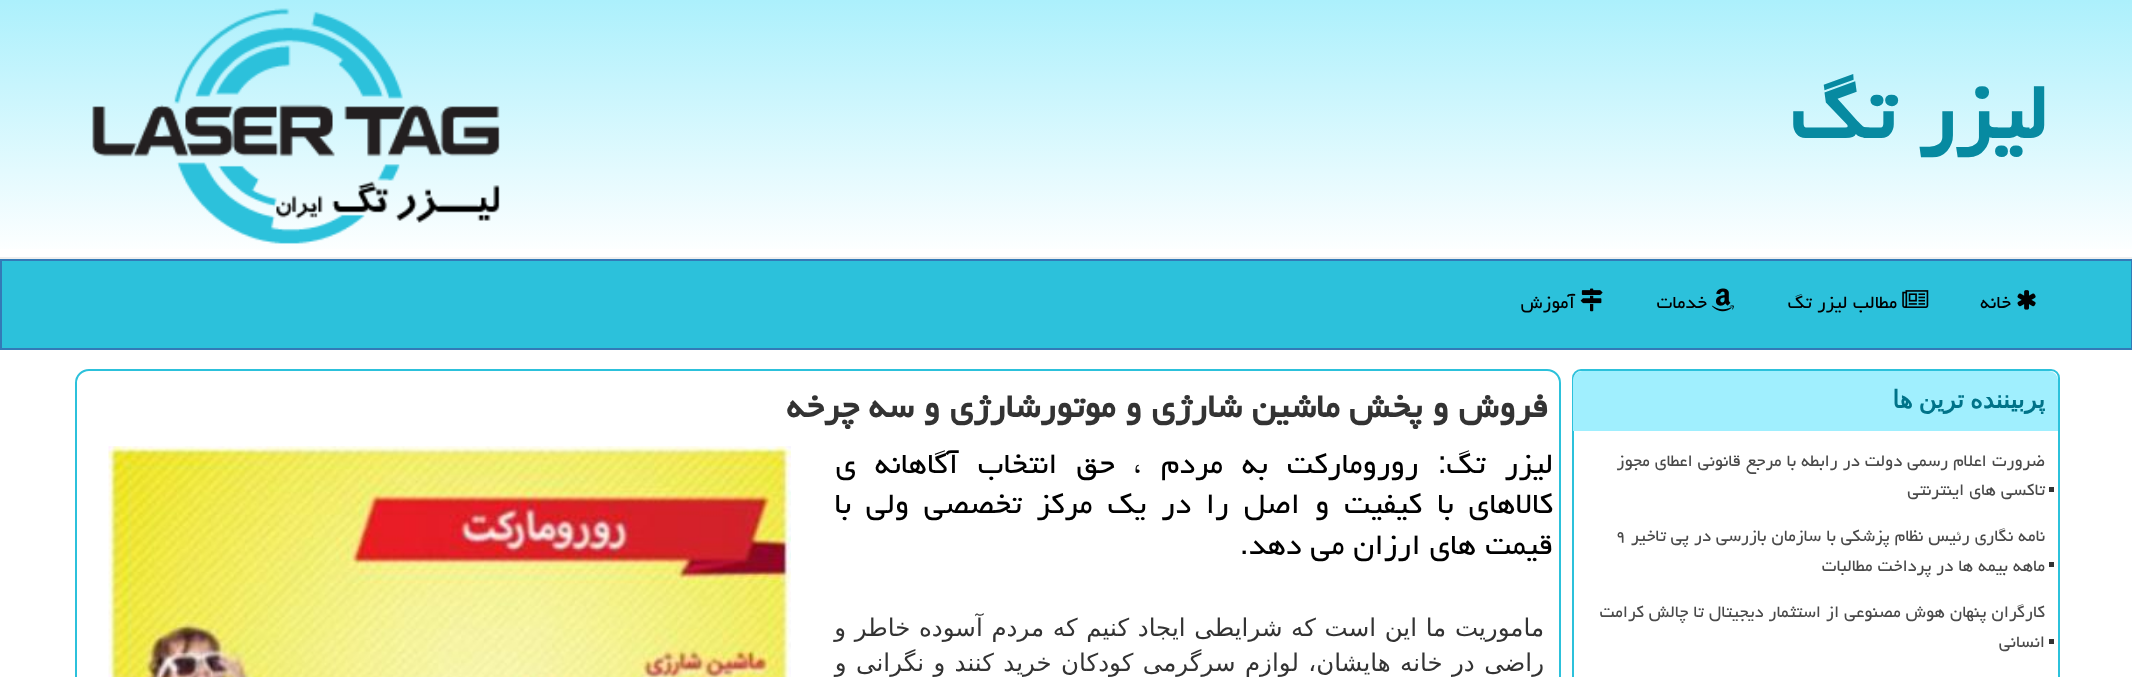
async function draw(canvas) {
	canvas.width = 2132;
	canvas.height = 677;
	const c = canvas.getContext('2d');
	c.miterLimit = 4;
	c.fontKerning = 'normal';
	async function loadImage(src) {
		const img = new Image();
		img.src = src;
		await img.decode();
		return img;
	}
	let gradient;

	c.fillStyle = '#fff';
	c.fillRect(0, 0, 2132, 677);
	gradient = c.createLinearGradient(1067, 0, 1067, 257);
	gradient.addColorStop(0, '#acf0fc');
	gradient.addColorStop(1, '#fff');
	c.fillStyle = gradient;
	c.fillRect(0, 0, 2132, 249);
	c.fillStyle = '#eee';
	c.fillRect(0, 257, 2132, 2);
	c.direction = 'rtl';
	c.font = 'bold 98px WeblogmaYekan';
	c.fillStyle = '#078aa1';
	c.fillText('لیزر تگ', 2047, 138);
	c.drawImage(await loadImage('img1.png'), 92, 8, 408, 236);
	c.fillStyle = '#2cc1db';
	c.beginPath();
	c.rect(1, 260, 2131, 89);
	c.fill();
	c.strokeStyle = '#337ab7';
	c.lineWidth = 2;
	c.stroke();
	c.drawImage(await loadImage('img2.png'), 2017, 290, 19, 20);
	c.font = '22.75px WeblogmaYekan';
	c.fillStyle = '#000';
	c.fillText('خانه', 2011, 308);
	c.drawImage(await loadImage('img3.png'), 1902, 290, 27, 18);
	c.fillText('مطالب لیزر تگ', 1897, 308);
	c.drawImage(await loadImage('img4.png'), 1711, 288, 23, 24);
	c.fillText('خدمات', 1707, 308);
	c.drawImage(await loadImage('img5.png'), 1580, 288, 23, 24);
	c.fillText('آموزش', 1575, 308);
	c.beginPath();
	c.roundRect(1573, 370, 486, 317, 8);
	c.strokeStyle = '#2cc1db';
	c.stroke();
	c.fillStyle = '#a0effe';
	c.beginPath();
	c.roundRect(1573, 371, 485, 60, [9, 9, 0, 0]);
	c.fill();
	c.wordSpacing = '-2px';
	c.font = 'bold 24.5px DejaVu Sans';
	c.fillStyle = '#007389';
	c.fillText('پربیننده ترین ها', 2045, 408);
	c.fillStyle = '#333';
	c.fillRect(2049, 487, 5, 5);
	c.wordSpacing = '0px';
	c.font = '21px WeblogmaYekan';
	c.fillStyle = '#4a4a4a';
	c.fillText('ضرورت اعلام رسمی دولت در رابطه با مرجع قانونی اعطای مجوز', 2045, 466);
	c.fillText('تاکسی های اینترنتی', 2045, 495);
	c.fillStyle = '#333';
	c.fillRect(2049, 562, 5, 5);
	c.fillStyle = '#4a4a4a';
	c.fillText('نامه نگاری رئیس نظام پزشکی با سازمان بازرسی در پی تاخیر', 2045, 541);
	c.direction = 'ltr';
	c.fillText('۹', 1615, 541);
	c.direction = 'rtl';
	c.fillText('ماهه بیمه ها در پرداخت مطالبات', 2045, 571);
	c.fillStyle = '#333';
	c.fillRect(2049, 639, 5, 5);
	c.fillStyle = '#4a4a4a';
	c.fillText('کارگران پنهان هوش مصنوعی از استثمار دیجیتال تا چالش کرامت', 2045, 617);
	c.fillText('انسانی', 2045, 647);
	c.beginPath();
	c.roundRect(76, 370, 1484, 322, 13);
	c.stroke();
	c.font = 'bold 41.6px WeblogmaYekan';
	c.fillStyle = '#333';
	c.fillText('فروش و پخش ماشین شارژی و موتورشارژی و سه چرخه', 1548, 417);
	c.wordSpacing = '10.25px';
	c.font = '36.75px WeblogmaYekan';
	c.fillStyle = '#000';
	c.fillText('لیزر تگ: روروماركت به مردم ، حق انتخاب آگاهانه ی', 1553, 473);
	c.drawImage(await loadImage('img6.png'), 108, 446, 683, 231);
	c.wordSpacing = '6.1px';
	c.fillText('كالاهای با كیفیت و اصل را در یك مركز تخصصی ولی با', 1553, 513);
	c.wordSpacing = '0px';
	c.fillText('قیمت های ارزان می دهد.', 1553, 554);
	c.wordSpacing = '0.9px';
	c.font = '24.5px DejaVu Sans';
	c.fillStyle = '#333';
	c.fillText('ماموریت ما این است كه شرایطی ایجاد كنیم كه مردم آسوده خاطر و', 1544, 636);
	c.wordSpacing = '1.6px';
	c.fillText('راضی در خانه هایشان، لوازم سرگرمی کودکان خرید كنند و نگرانی و', 1544, 671);
}

draw(document.querySelector('canvas'));
